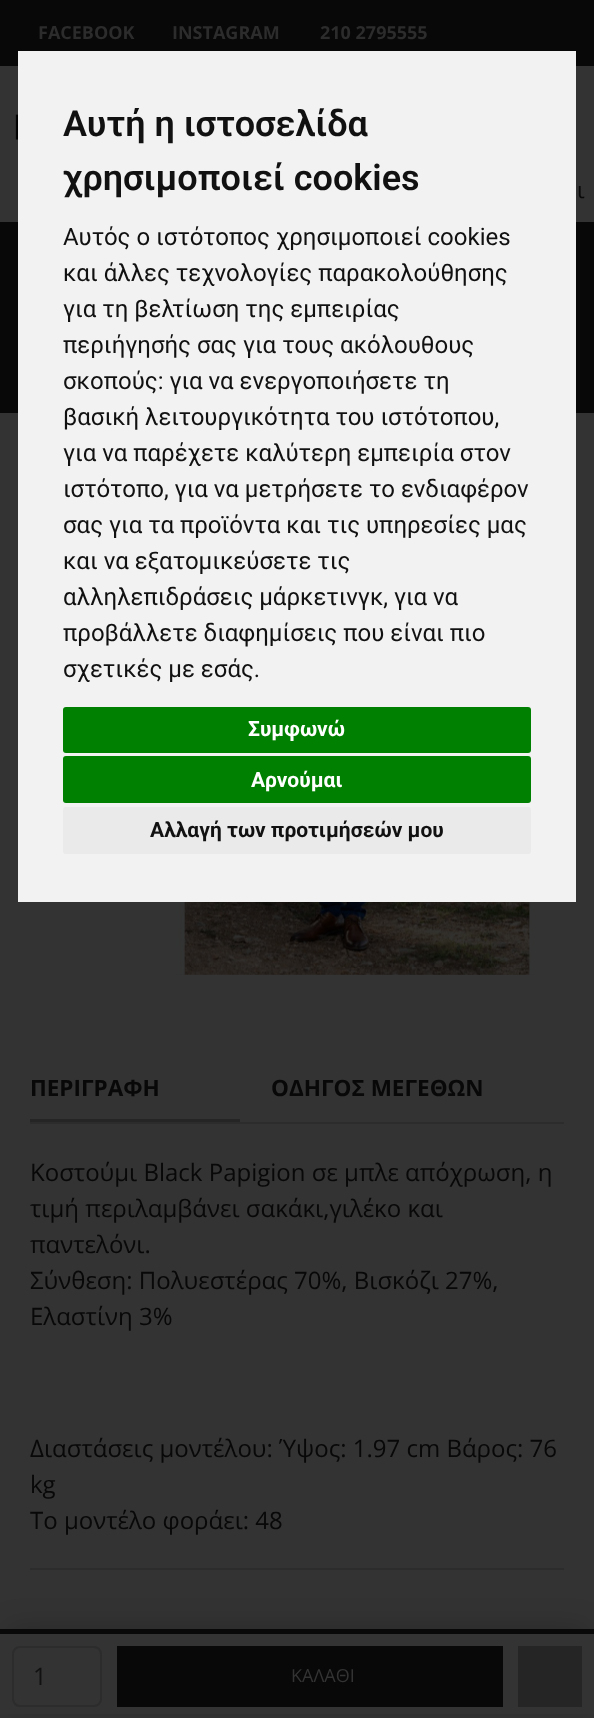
async function draw(canvas) {
	canvas.width = 594;
	canvas.height = 1718;
	const c = canvas.getContext('2d');
	c.miterLimit = 4;
	c.fontKerning = 'normal';
	async function loadImage(src) {
		const img = new Image();
		img.src = src;
		await img.decode();
		return img;
	}

	c.fillStyle = '#333';
	c.fillRect(0, 0, 594, 1718);
	c.fillStyle = '#080809';
	c.fillRect(0, 0, 594, 66);
	c.font = 'bold 18px Open Sans';
	c.fillStyle = '#2c2c2c';
	for (const [text, x, y] of [
		['FACEBOOK', 38, 39],
		['INSTAGRAM', 172, 39],
		['210 2795555', 320, 39],
	]) {
		c.fillText(text, x, y);
	}
	c.drawImage(await loadImage('img1.png'), 15, 114, 3, 26);
	c.font = '22.5px Open Sans';
	c.fillStyle = '#080809';
	c.fillText('ι', 577, 198);
	c.fillRect(0, 222, 594, 191);
	c.drawImage(await loadImage('img2.png'), 174, 902, 361, 73);
	c.fillStyle = '#2c2c2c';
	c.fillRect(30, 1122, 534, 2);
	c.fillStyle = '#252525';
	c.fillRect(30, 1119, 210, 3);
	c.font = 'bold 22.5px Open Sans';
	c.fillStyle = '#080809';
	c.fillText('ΠΕΡΙΓΡΑΦΗ', 30, 1096);
	c.fillText('ΟΔΗΓΟΣ ΜΕΓΕΘΩΝ', 271, 1096);
	c.font = '24px Open Sans';
	for (const [text, x, y] of [
		['Κοστούμι Black Papigion σε μπλε απόχρωση, η', 30, 1181],
		['τιμή περιλαμβάνει σακάκι,γιλέκο και', 30, 1217],
		['παντελόνι.', 30, 1253],
		['Σύνθεση: Πολυεστέρας 70%, Βισκόζι 27%,', 30, 1289],
		['Ελαστίνη 3%', 30, 1325],
		['Διαστάσεις μοντέλου: Ύψος: 1.97 cm Βάρος: 76', 30, 1457],
		['kg', 30, 1493],
		['Το μοντέλο φοράει: 48', 30, 1529],
	]) {
		c.fillText(text, x, y);
	}
	c.fillStyle = '#2c2c2c';
	c.fillRect(30, 1568, 534, 2);
	c.fillStyle = '#00000033';
	c.filter = 'blur(15px)';
	c.beginPath();
	c.rect(8, 1629, 579, 75);
	c.fill();
	c.filter = 'none';
	c.fillStyle = '#333';
	c.fillRect(0, 1634, 594, 80);
	c.fillStyle = '#080809';
	c.fillRect(0, 1629, 594, 5);
	c.beginPath();
	c.roundRect(13, 1647, 88, 59, 7);
	c.strokeStyle = '#2c2c2c';
	c.lineWidth = 2;
	c.stroke();
	c.fillStyle = '#111';
	c.fillText('1', 33, 1685);
	c.fillStyle = '#080809';
	c.fillRect(117, 1646, 386, 61);
	c.font = '18px Open Sans';
	c.fillStyle = '#333';
	c.fillText('ΚΑΛΑΘΙ', 291, 1682);
	c.fillStyle = '#252525';
	c.fillRect(518, 1646, 64, 61);
	c.fillStyle = '#f2f2f2';
	c.fillRect(18, 51, 558, 851);
	c.font = '600 36px Roboto';
	c.fillStyle = '#111';
	c.fillText('Αυτή η ιστοσελίδα', 63, 136);
	c.fillText('χρησιμοποιεί cookies', 63, 190);
	c.font = '24px Roboto';
	for (const [text, x, y] of [
		['Αυτός ο ιστότοπος χρησιμοποιεί cookies', 63, 245],
		['και άλλες τεχνολογίες παρακολούθησης', 63, 281],
		['για τη βελτίωση της εμπειρίας', 63, 317],
		['περιήγησής σας για τους ακόλουθους', 63, 353],
		['σκοπούς: για να ενεργοποιήσετε τη', 63, 389],
		['βασική λειτουργικότητα του ιστότοπου,', 63, 425],
		['για να παρέχετε καλύτερη εμπειρία στον', 63, 461],
		['ιστότοπο, για να μετρήσετε το ενδιαφέρον', 63, 497],
		['σας για τα προϊόντα και τις υπηρεσίες μας', 63, 533],
		['και να εξατομικεύσετε τις', 63, 569],
		['αλληλεπιδράσεις μάρκετινγκ, για να', 63, 605],
		['προβάλλετε διαφημίσεις που είναι πιο', 63, 641],
		['σχετικές με εσάς.', 63, 677],
	]) {
		c.fillText(text, x, y);
	}
	c.fillStyle = '#008000';
	c.beginPath();
	c.roundRect(63, 707, 468, 46, 3);
	c.fill();
	c.font = 'bold 21px Roboto';
	c.fillStyle = '#fff';
	c.fillText('Συμφωνώ', 248, 736);
	c.fillStyle = '#008000';
	c.beginPath();
	c.roundRect(63, 756, 468, 47, 3);
	c.fill();
	c.fillStyle = '#fff';
	c.fillText('Αρνούμαι', 251, 787);
	c.fillStyle = '#eaeaea';
	c.beginPath();
	c.roundRect(63, 807, 468, 47, 3);
	c.fill();
	c.fillStyle = '#111';
	c.fillText('Αλλαγή των προτιμήσεών μου', 150, 837);
}

draw(document.querySelector('canvas'));
